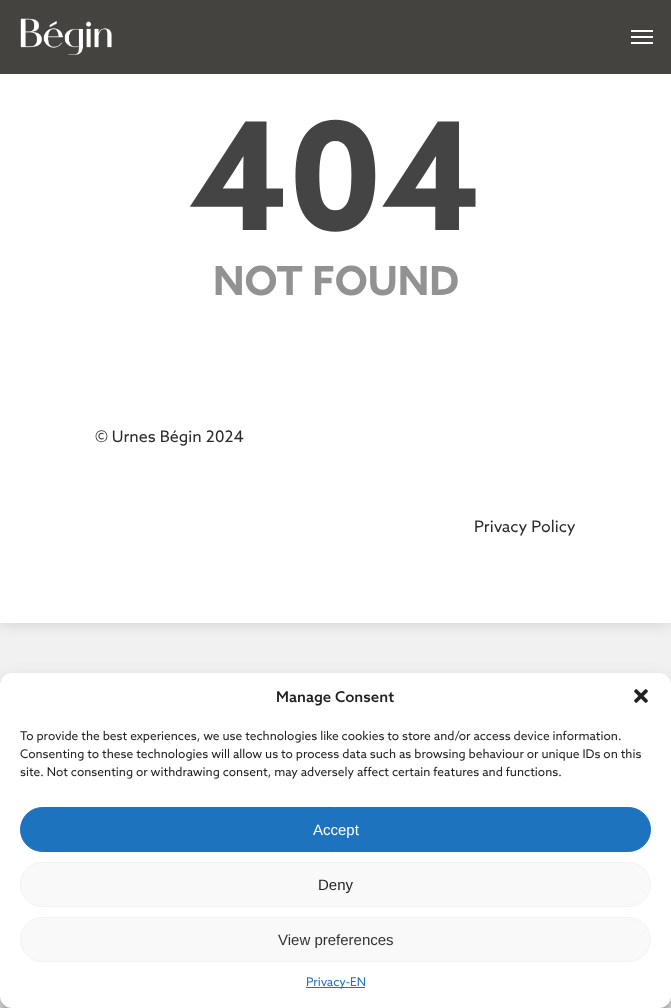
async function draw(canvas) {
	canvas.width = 671;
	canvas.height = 1008;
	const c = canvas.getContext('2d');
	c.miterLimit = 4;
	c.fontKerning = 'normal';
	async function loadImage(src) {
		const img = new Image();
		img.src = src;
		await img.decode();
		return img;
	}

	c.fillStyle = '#f1f1f1';
	c.fillRect(0, 0, 671, 1008);
	c.fillStyle = '#00000026';
	c.filter = 'blur(7.5px)';
	c.beginPath();
	c.rect(0, 0, 671, 623);
	c.fill();
	c.filter = 'none';
	c.fillStyle = '#444340';
	c.fillRect(0, 0, 671, 74);
	c.drawImage(await loadImage('img1.png'), 20, 18, 92, 37);
	for (const [x, y, w, h, color] of [
		[631, 30, 22, 2, '#fff'],
		[631, 42, 22, 2, '#fff'],
		[631, 36, 22, 2, '#fff'],
		[0, 74, 671, 549, '#fff'],
	]) {
		c.fillStyle = color;
		c.fillRect(x, y, w, h);
	}
	c.font = 'bold 150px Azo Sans';
	c.fillStyle = '#444';
	c.fillText('404', 190, 230);
	c.font = 'bold 40px Azo Sans';
	c.fillStyle = '#929292';
	c.fillText('NOT FOUND', 213, 295);
	c.font = '16px Azo Sans';
	c.fillStyle = '#2b2b2b';
	c.fillText('© Urnes Bégin 2024', 95, 442);
	c.fillText('Privacy Policy', 474, 532);
	c.fillStyle = '#0000003b';
	c.filter = 'blur(3px)';
	c.beginPath();
	c.roundRect(0, 679, 671, 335, 12);
	c.fill();
	c.filter = 'none';
	c.fillStyle = '#00000030';
	c.filter = 'blur(10px)';
	c.beginPath();
	c.roundRect(0, 683, 671, 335, 12);
	c.fill();
	c.filter = 'none';
	c.fillStyle = '#fff';
	c.beginPath();
	c.roundRect(0, 673, 671, 335, 12);
	c.fill();
	c.font = '500 15px Azo Sans';
	c.fillStyle = '#222';
	c.fillText('Manage Consent', 276, 702);
	c.drawImage(await loadImage('img2.png'), 634, 689, 14, 14);
	c.font = '12px Azo Sans';
	for (const [text, x, y] of [
		['To provide the best experiences, we use technologies like cookies to store and/or access device information.', 20, 740],
		['Consenting to these technologies will allow us to process data such as browsing behaviour or unique IDs on this', 20, 758],
		['site. Not consenting or withdrawing consent, may adversely affect certain features and functions.', 20, 776],
	]) {
		c.fillText(text, x, y);
	}
	c.fillStyle = '#1e73be';
	c.beginPath();
	c.roundRect(20.5, 807.5, 630, 44, 22);
	c.fill();
	c.strokeStyle = '#1e73be';
	c.stroke();
	c.font = '15px Liberation Sans';
	c.fillStyle = '#fff';
	c.fillText('Accept', 313, 835);
	c.fillStyle = '#f9f9f9';
	c.beginPath();
	c.roundRect(20.5, 862.5, 630, 44, 22);
	c.fill();
	c.strokeStyle = '#f2f2f2';
	c.stroke();
	c.fillStyle = '#222';
	c.fillText('Deny', 318, 890);
	c.fillStyle = '#f9f9f9';
	c.beginPath();
	c.roundRect(20.5, 917.5, 630, 44, 22);
	c.fill();
	c.stroke();
	c.fillStyle = '#333';
	c.fillText('View preferences', 278, 945);
	c.fillStyle = '#1e73be';
	c.fillRect(306, 987, 59, 1);
	c.font = '12px Azo Sans';
	c.fillText('Privacy-EN', 306, 986);
}

draw(document.querySelector('canvas'));
